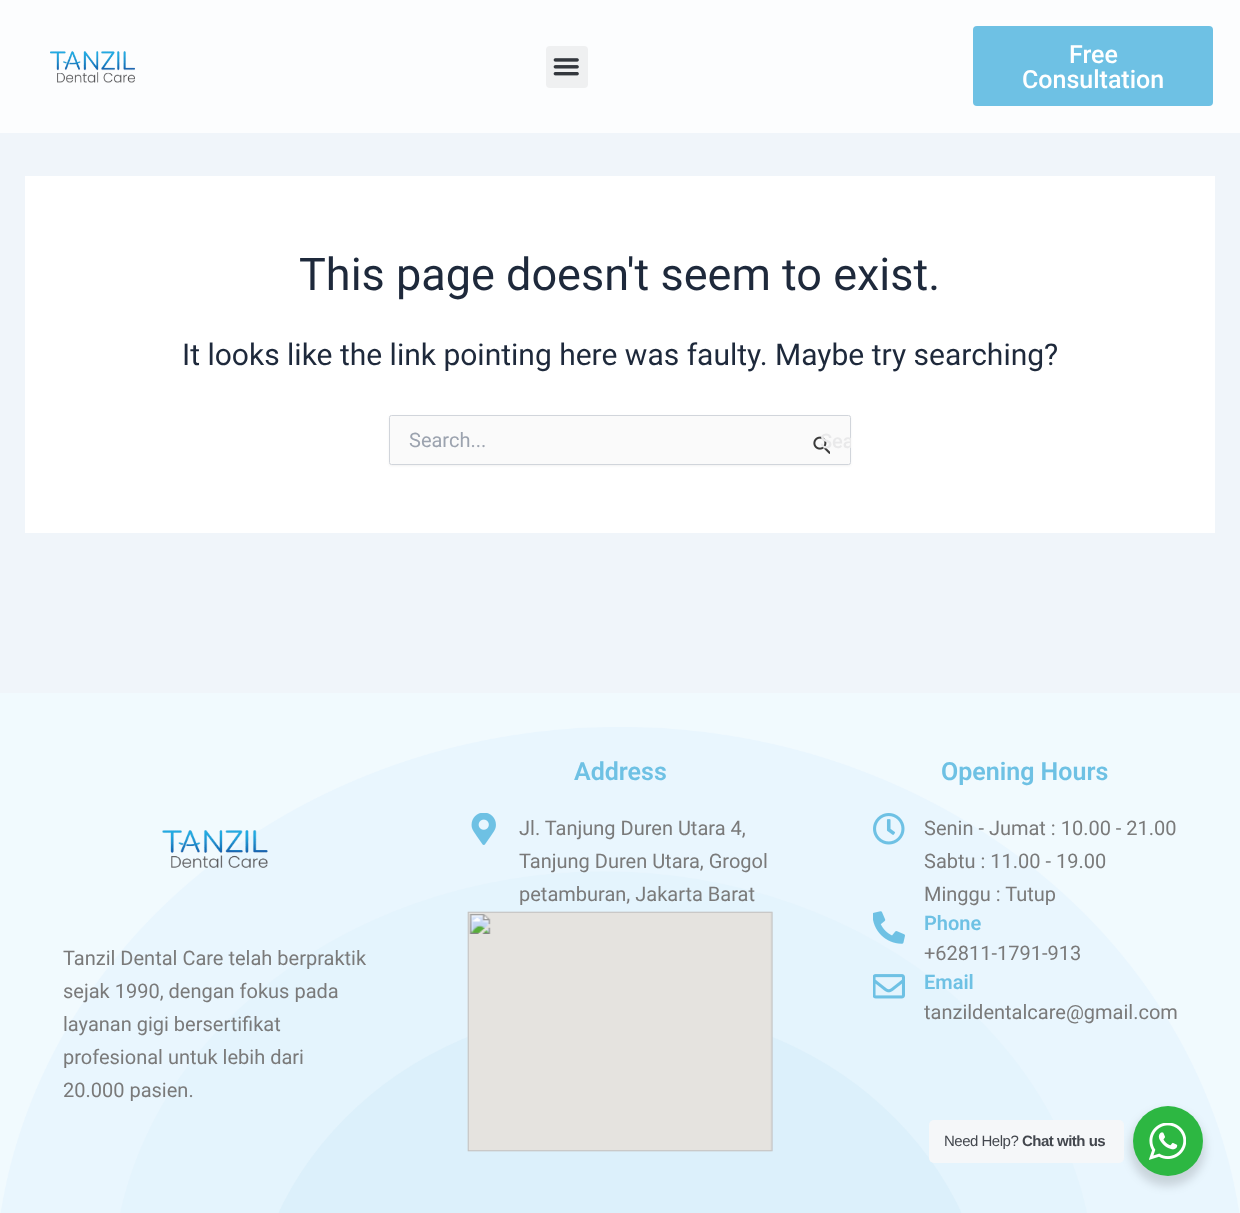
async function draw(canvas) {
	canvas.width = 1240;
	canvas.height = 1213;
	const c = canvas.getContext('2d');
	c.miterLimit = 4;
	c.fontKerning = 'normal';
	async function loadImage(src) {
		const img = new Image();
		img.src = src;
		await img.decode();
		return img;
	}

	c.fillStyle = '#f0f5fa';
	c.fillRect(0, 0, 1240, 1213);
	c.fillStyle = '#fcfdfe';
	c.fillRect(0, 0, 1240, 133);
	c.drawImage(await loadImage('img1.png'), 50, 51, 85, 32);
	c.fillStyle = '#eff0f1';
	c.beginPath();
	c.roundRect(546, 46, 42, 42, 4);
	c.fill();
	c.drawImage(await loadImage('img2.png'), 553, 58, 26, 18);
	c.fillStyle = '#6ec1e4';
	c.beginPath();
	c.roundRect(973, 26, 240, 80, 4);
	c.fill();
	c.font = '500 25px Roboto';
	c.fillStyle = '#fff';
	c.fillText('Free', 1069, 63);
	c.fillText('Consultation', 1022, 88);
	c.fillRect(25, 176, 1190, 357);
	c.font = '45px Roboto';
	c.fillStyle = '#1e293b';
	c.fillText('This page doesn\'t seem to exist.', 299, 290);
	c.font = '30px Roboto';
	c.fillText('It looks like the link pointing here was faulty. Maybe try searching?', 182, 365);
	c.fillStyle = '#0000000d';
	c.filter = 'blur(1px)';
	c.beginPath();
	c.roundRect(389, 416, 462, 50, 2.5);
	c.fill();
	c.filter = 'none';
	c.fillStyle = '#fafafa';
	c.beginPath();
	c.roundRect(389.5, 415.5, 461, 49, 2);
	c.fill();
	c.strokeStyle = '#d1d5db';
	c.stroke();
	c.font = '20px Roboto';
	c.fillStyle = '#9ca3af';
	c.fillText('Search...', 409, 447);
	c.drawImage(await loadImage('img3.png'), 813, 436, 17, 18);
	c.save();
	c.beginPath();
	c.roundRect(795, 415, 56, 53, 2.5);
	c.clip();
	c.font = '500 20px Roboto';
	c.fillStyle = '#e9e9ea';
	c.fillText('Sea', 820, 448);
	c.restore();
	c.drawImage(await loadImage('img4.png'), 0, 693, 1240, 520);
	c.drawImage(await loadImage('img5.png'), 162, 830, 106, 38);
	c.fillStyle = '#7a7a7a';
	for (const [text, x, y] of [
		['Tanzil Dental Care telah berpraktik', 63, 965],
		['sejak 1990, dengan fokus pada', 63, 998],
		['layanan gigi bersertifikat', 63, 1031],
		['profesional untuk lebih dari', 63, 1064],
		['20.000 pasien.', 63, 1097],
	]) {
		c.fillText(text, x, y);
	}
	c.font = '600 25px Roboto';
	c.fillStyle = '#6ec1e4';
	c.fillText('Address', 574, 780);
	c.drawImage(await loadImage('img6.png'), 471, 813, 25, 32);
	c.font = '20px Roboto';
	c.fillStyle = '#7a7a7a';
	for (const [text, x, y] of [
		['Jl. Tanjung Duren Utara 4,', 519, 835],
		['Tanjung Duren Utara, Grogol', 519, 868],
		['petamburan, Jakarta Barat', 519, 901],
	]) {
		c.fillText(text, x, y);
	}
	c.drawImage(await loadImage('img7.png'), 467, 911, 306, 241);
	c.font = '600 25px Roboto';
	c.fillStyle = '#6ec1e4';
	c.fillText('Opening Hours', 941, 780);
	c.drawImage(await loadImage('img8.png'), 873, 813, 32, 32);
	c.font = '20px Roboto';
	c.fillStyle = '#7a7a7a';
	for (const [text, x, y] of [
		['Senin - Jumat : 10.00 - 21.00', 924, 835],
		['Sabtu : 11.00 - 19.00', 924, 868],
		['Minggu : Tutup', 924, 901],
	]) {
		c.fillText(text, x, y);
	}
	c.drawImage(await loadImage('img9.png'), 873, 911, 32, 33);
	c.font = '600 20px Roboto';
	c.fillStyle = '#6ec1e4';
	c.fillText('Phone', 924, 930);
	c.font = '20px Roboto';
	c.fillStyle = '#7a7a7a';
	c.fillText('+62811-1791-913', 924, 960);
	c.drawImage(await loadImage('img10.png'), 873, 974, 32, 25);
	c.font = '600 20px Roboto';
	c.fillStyle = '#6ec1e4';
	c.fillText('Email', 924, 989);
	c.font = '20px Roboto';
	c.fillStyle = '#7a7a7a';
	c.fillText('tanzildentalcare@gmail.com', 924, 1019);
	c.fillStyle = '#00000024';
	c.filter = 'blur(5px)';
	c.beginPath();
	c.roundRect(1130, 1111, 75, 75, 37.5);
	c.fill();
	c.filter = 'none';
	c.fillStyle = '#f5f7f9';
	c.beginPath();
	c.roundRect(929, 1120, 195, 43, 5);
	c.fill();
	c.letterSpacing = '-0.5px';
	c.font = '15px Liberation Sans';
	c.fillStyle = '#43474e';
	c.fillText('Need Help?', 944, 1146);
	c.font = 'bold 15px Liberation Sans';
	c.fillText('Chat with us', 1022, 1146);
	c.fillStyle = '#2db742';
	c.beginPath();
	c.arc(1168, 1141, 35, 0, 2 * Math.PI);
	c.fill();
	c.drawImage(await loadImage('img11.png'), 1149, 1123, 37, 37);
}

draw(document.querySelector('canvas'));
